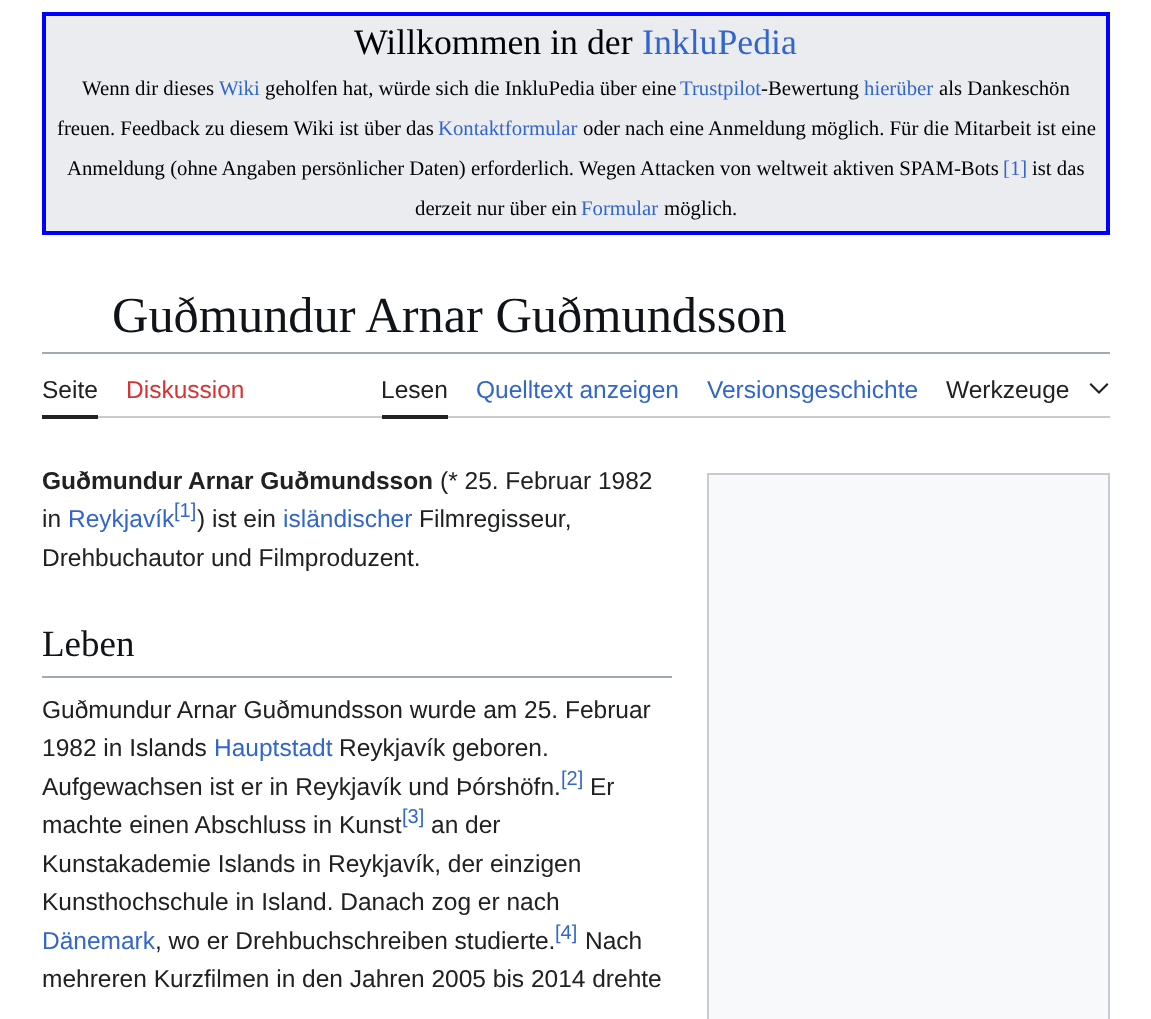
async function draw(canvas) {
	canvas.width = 1151;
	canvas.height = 1019;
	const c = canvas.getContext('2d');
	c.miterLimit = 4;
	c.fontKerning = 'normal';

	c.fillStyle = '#fff';
	c.fillRect(0, 0, 1151, 1019);
	c.fillStyle = '#eaecf0';
	c.beginPath();
	c.rect(44, 14, 1064, 219);
	c.fill();
	c.strokeStyle = '#00f';
	c.lineWidth = 4;
	c.stroke();
	c.font = '35.75px Liberation Serif';
	c.fillStyle = '#000';
	c.fillText('Willkommen in der', 354, 54);
	c.fillStyle = '#36c';
	c.fillText('InkluPedia', 642, 54);
	c.font = '20.75px Liberation Serif';
	c.fillStyle = '#000';
	c.fillText('Wenn dir dieses', 82, 95);
	c.fillStyle = '#36c';
	c.fillText('Wiki', 219, 95);
	c.fillStyle = '#000';
	c.fillText('geholfen hat, würde sich die InkluPedia über eine', 265, 95);
	c.fillStyle = '#36c';
	c.fillText('Trustpilot', 680, 95);
	c.fillStyle = '#000';
	c.fillText('-Bewertung', 761, 95);
	c.fillStyle = '#36c';
	c.fillText('hierüber', 864, 95);
	c.fillStyle = '#000';
	c.fillText('als Dankeschön', 939, 95);
	c.fillText('freuen. Feedback zu diesem Wiki ist über das', 57, 135);
	c.fillStyle = '#36c';
	c.fillText('Kontaktformular', 438, 135);
	c.fillStyle = '#000';
	c.fillText('oder nach eine Anmeldung möglich. Für die Mitarbeit ist eine', 583, 135);
	c.fillText('Anmeldung (ohne Angaben persönlicher Daten) erforderlich. Wegen Attacken von weltweit aktiven SPAM-Bots', 67, 175);
	c.fillStyle = '#36c';
	c.fillText('[1]', 1003, 175);
	c.fillStyle = '#000';
	c.fillText('ist das', 1032, 175);
	c.fillText('derzeit nur über ein', 415, 215);
	c.fillStyle = '#36c';
	c.fillText('Formular', 581, 215);
	c.fillStyle = '#000';
	c.fillText('möglich.', 664, 215);
	c.font = '50.4px Liberation Serif';
	c.fillStyle = '#101418';
	c.fillText('Guðmundur Arnar Guðmundsson', 112, 332);
	c.fillStyle = '#a2a9b1';
	c.fillRect(42, 352, 1068, 2);
	c.fillStyle = '#c8ccd1';
	c.beginPath();
	c.moveTo(42, 416);
	c.lineTo(42, 418);
	c.lineTo(1110, 418);
	c.lineTo(1110, 355);
	c.lineTo(1110, 416);
	c.closePath();
	c.fill();
	c.fillStyle = '#202122';
	c.fillRect(42, 415, 56, 4);
	c.font = '24.5px Liberation Sans';
	c.fillText('Seite', 42, 398);
	c.fillStyle = '#d73333';
	c.fillText('Diskussion', 126, 398);
	c.fillStyle = '#202122';
	c.fillRect(382, 415, 66, 4);
	c.fillText('Lesen', 381, 398);
	c.fillStyle = '#36c';
	c.fillText('Quelltext anzeigen', 476, 398);
	c.fillText('Versionsgeschichte', 707, 398);
	c.fillStyle = '#202122';
	c.fillText('Werkzeuge', 946, 398);
	c.beginPath();
	c.moveTo(1107, 383);
	c.lineTo(1099, 391);
	c.lineTo(1091, 383);
	c.lineTo(1089.5, 384.5);
	c.lineTo(1099, 394);
	c.lineTo(1108.5, 384.5);
	c.closePath();
	c.fill();
	c.font = 'bold 24.5px Liberation Sans';
	c.fillText('Guðmundur Arnar Guðmundsson', 42, 489);
	c.font = '24.5px Liberation Sans';
	c.fillText('(* 25. Februar 1982', 440, 489);
	c.fillText('in', 42, 527);
	c.fillStyle = '#36c';
	c.fillText('Reykjavík', 68, 527);
	c.font = '20px Liberation Sans';
	c.fillText('[1]', 174, 517);
	c.font = '24.5px Liberation Sans';
	c.fillStyle = '#202122';
	c.fillText(') ist ein', 197, 527);
	c.fillStyle = '#36c';
	c.fillText('isländischer', 283, 527);
	c.fillStyle = '#202122';
	c.fillText('Filmregisseur,', 419, 527);
	c.fillText('Drehbuchautor und Filmproduzent.', 42, 566);
	for (const [x, y, w, h, color] of [
		[709, 475, 399, 544, '#f8f9fa'],
		[707, 473, 403, 2, '#c8ccd1'],
		[1108, 473, 2, 546, '#c8ccd1'],
		[707, 473, 2, 546, '#c8ccd1'],
		[42, 676, 630, 2, '#a2a9b1'],
	]) {
		c.fillStyle = color;
		c.fillRect(x, y, w, h);
	}
	c.font = '37px Liberation Serif';
	c.fillStyle = '#101418';
	c.fillText('Leben', 42, 656);
	c.font = '24.5px Liberation Sans';
	c.fillStyle = '#202122';
	c.fillText('Guðmundur Arnar Guðmundsson wurde am 25. Februar', 42, 718);
	c.fillText('1982 in Islands', 42, 756);
	c.fillStyle = '#36c';
	c.fillText('Hauptstadt', 214, 756);
	c.fillStyle = '#202122';
	c.fillText('Reykjavík geboren.', 339, 756);
	c.fillText('Aufgewachsen ist er in Reykjavík und Þórshöfn.', 42, 795);
	c.font = '20px Liberation Sans';
	c.fillStyle = '#36c';
	c.fillText('[2]', 561, 785);
	c.font = '24.5px Liberation Sans';
	c.fillStyle = '#202122';
	c.fillText('Er', 590, 795);
	c.fillText('machte einen Abschluss in Kunst', 42, 833);
	c.font = '20px Liberation Sans';
	c.fillStyle = '#36c';
	c.fillText('[3]', 402, 823);
	c.font = '24.5px Liberation Sans';
	c.fillStyle = '#202122';
	for (const [text, x, y] of [
		['an der', 431, 833],
		['Kunstakademie Islands in Reykjavík, der einzigen', 42, 872],
		['Kunsthochschule in Island. Danach zog er nach', 42, 910],
	]) {
		c.fillText(text, x, y);
	}
	c.fillStyle = '#36c';
	c.fillText('Dänemark', 42, 949);
	c.fillStyle = '#202122';
	c.fillText(', wo er Drehbuchschreiben studierte.', 155, 949);
	c.font = '20px Liberation Sans';
	c.fillStyle = '#36c';
	c.fillText('[4]', 555, 939);
	c.font = '24.5px Liberation Sans';
	c.fillStyle = '#202122';
	c.fillText('Nach', 585, 949);
	c.fillText('mehreren Kurzfilmen in den Jahren 2005 bis 2014 drehte', 42, 987);
}

draw(document.querySelector('canvas'));
